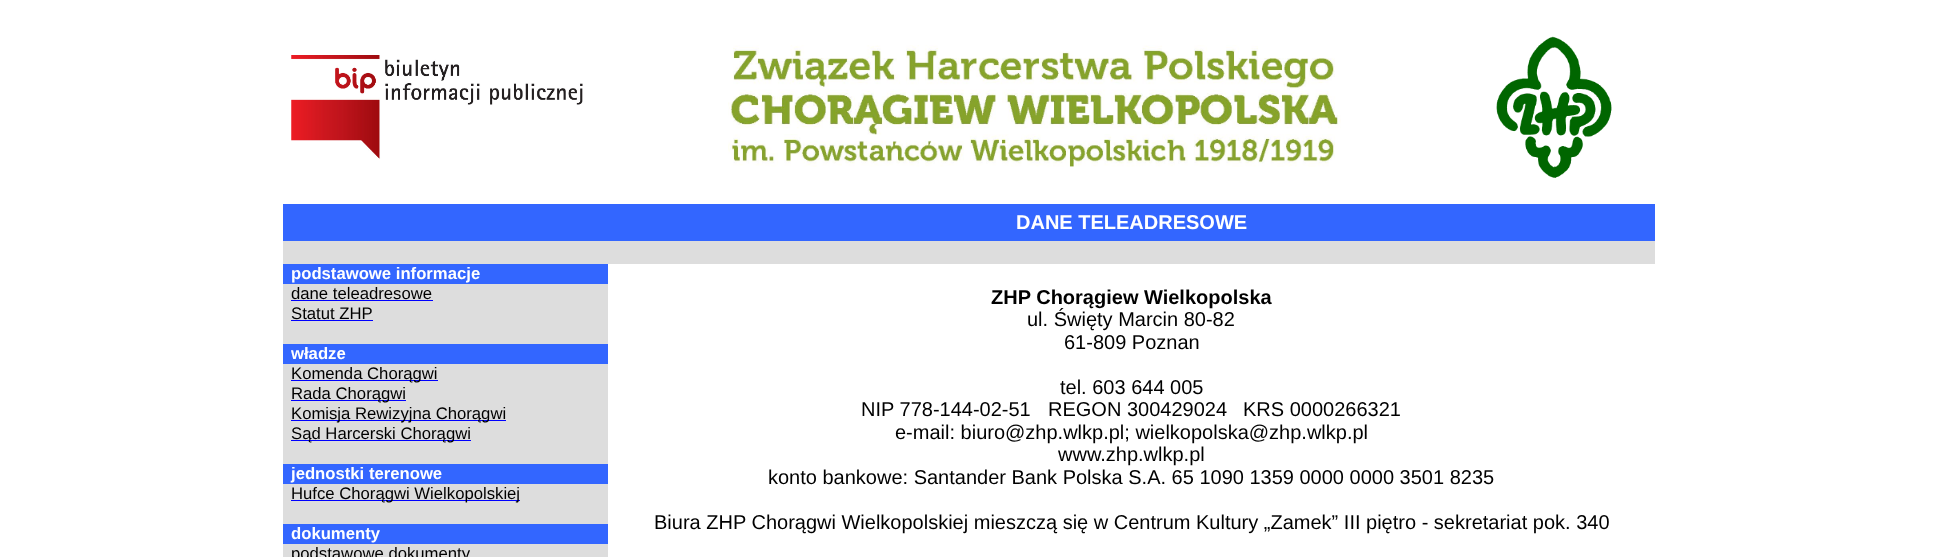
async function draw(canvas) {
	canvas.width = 1937;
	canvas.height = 557;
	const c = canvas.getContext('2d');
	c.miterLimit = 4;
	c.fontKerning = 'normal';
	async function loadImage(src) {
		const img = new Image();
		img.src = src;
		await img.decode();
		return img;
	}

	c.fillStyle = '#fff';
	c.fillRect(0, 0, 1937, 557);
	c.drawImage(await loadImage('img1.png'), 291, 55, 292, 104);
	c.drawImage(await loadImage('img2.png'), 728, 45, 613, 122);
	c.drawImage(await loadImage('img3.png'), 1496, 36, 116, 142);
	c.fillStyle = '#36f';
	c.fillRect(283, 204, 1372, 37);
	c.font = 'bold 20px Liberation Sans';
	c.fillStyle = '#fff';
	c.fillText('DANE TELEADRESOWE', 1016, 229);
	c.fillStyle = '#ddd';
	c.fillRect(283, 241, 1372, 23);
	c.fillStyle = '#36f';
	c.fillRect(283, 264, 325, 20);
	c.font = 'bold 16.7px Liberation Sans';
	c.fillStyle = '#fff';
	c.fillText('podstawowe informacje', 291, 279);
	c.font = 'bold 20px Liberation Sans';
	c.fillStyle = '#000';
	c.fillText('ZHP Chorągiew Wielkopolska', 991, 304);
	c.font = '20px Liberation Sans';
	for (const [text, x, y] of [
		['ul. Święty Marcin 80-82', 1027, 326],
		['61-809 Poznan', 1064, 349],
		['tel. 603 644 005', 1060, 394],
		['NIP 778-144-02-51', 861, 416],
		['REGON 300429024', 1048, 416],
		['KRS 0000266321', 1243, 416],
		['e-mail: biuro@zhp.wlkp.pl; wielkopolska@zhp.wlkp.pl', 895, 439],
		['www.zhp.wlkp.pl', 1058, 461],
		['konto bankowe: Santander Bank Polska S.A. 65 1090 1359 0000 0000 3501 8235', 768, 484],
		['Biura ZHP Chorągwi Wielkopolskiej mieszczą się w Centrum Kultury „Zamek” III piętro - sekretariat pok. 340', 654, 529],
	]) {
		c.fillText(text, x, y);
	}
	c.fillStyle = '#ddd';
	c.fillRect(283, 284, 325, 60);
	c.font = '16.7px Liberation Sans';
	c.fillStyle = '#000';
	c.fillText('dane teleadresowe', 291, 299);
	c.fillStyle = '#00f';
	c.fillRect(291, 300, 142, 1);
	c.fillStyle = '#000';
	c.fillText('Statut ZHP', 291, 319);
	c.fillStyle = '#00f';
	c.fillRect(291, 320, 82, 1);
	c.fillStyle = '#36f';
	c.fillRect(283, 344, 325, 20);
	c.font = 'bold 16.7px Liberation Sans';
	c.fillStyle = '#fff';
	c.fillText('władze', 291, 359);
	c.fillStyle = '#ddd';
	c.fillRect(283, 364, 325, 100);
	c.fillStyle = '#00f';
	c.fillRect(291, 380, 147, 1);
	c.font = '16.7px Liberation Sans';
	c.fillStyle = '#000';
	c.fillText('Komenda Chorągwi', 291, 379);
	c.fillStyle = '#00f';
	c.fillRect(291, 400, 115, 1);
	c.fillStyle = '#000';
	c.fillText('Rada Chorągwi', 291, 399);
	c.fillStyle = '#00f';
	c.fillRect(291, 420, 215, 1);
	c.fillStyle = '#000';
	c.fillText('Komisja Rewizyjna Chorągwi', 291, 419);
	c.fillStyle = '#00f';
	c.fillRect(291, 440, 180, 1);
	c.fillStyle = '#000';
	c.fillText('Sąd Harcerski Chorągwi', 291, 439);
	c.fillStyle = '#36f';
	c.fillRect(283, 464, 325, 20);
	c.font = 'bold 16.7px Liberation Sans';
	c.fillStyle = '#fff';
	c.fillText('jednostki terenowe', 291, 479);
	c.fillStyle = '#ddd';
	c.fillRect(283, 484, 325, 40);
	c.fillStyle = '#00f';
	c.fillRect(291, 500, 229, 1);
	c.font = '16.7px Liberation Sans';
	c.fillStyle = '#000';
	c.fillText('Hufce Chorągwi Wielkopolskiej', 291, 499);
	c.fillStyle = '#36f';
	c.fillRect(283, 524, 325, 20);
	c.font = 'bold 16.7px Liberation Sans';
	c.fillStyle = '#fff';
	c.fillText('dokumenty', 291, 539);
	c.fillStyle = '#ddd';
	c.fillRect(283, 544, 325, 13);
	c.font = '16.7px Liberation Sans';
	c.fillStyle = '#000';
	c.fillText('podstawowe dokumenty', 291, 559);
}

draw(document.querySelector('canvas'));
